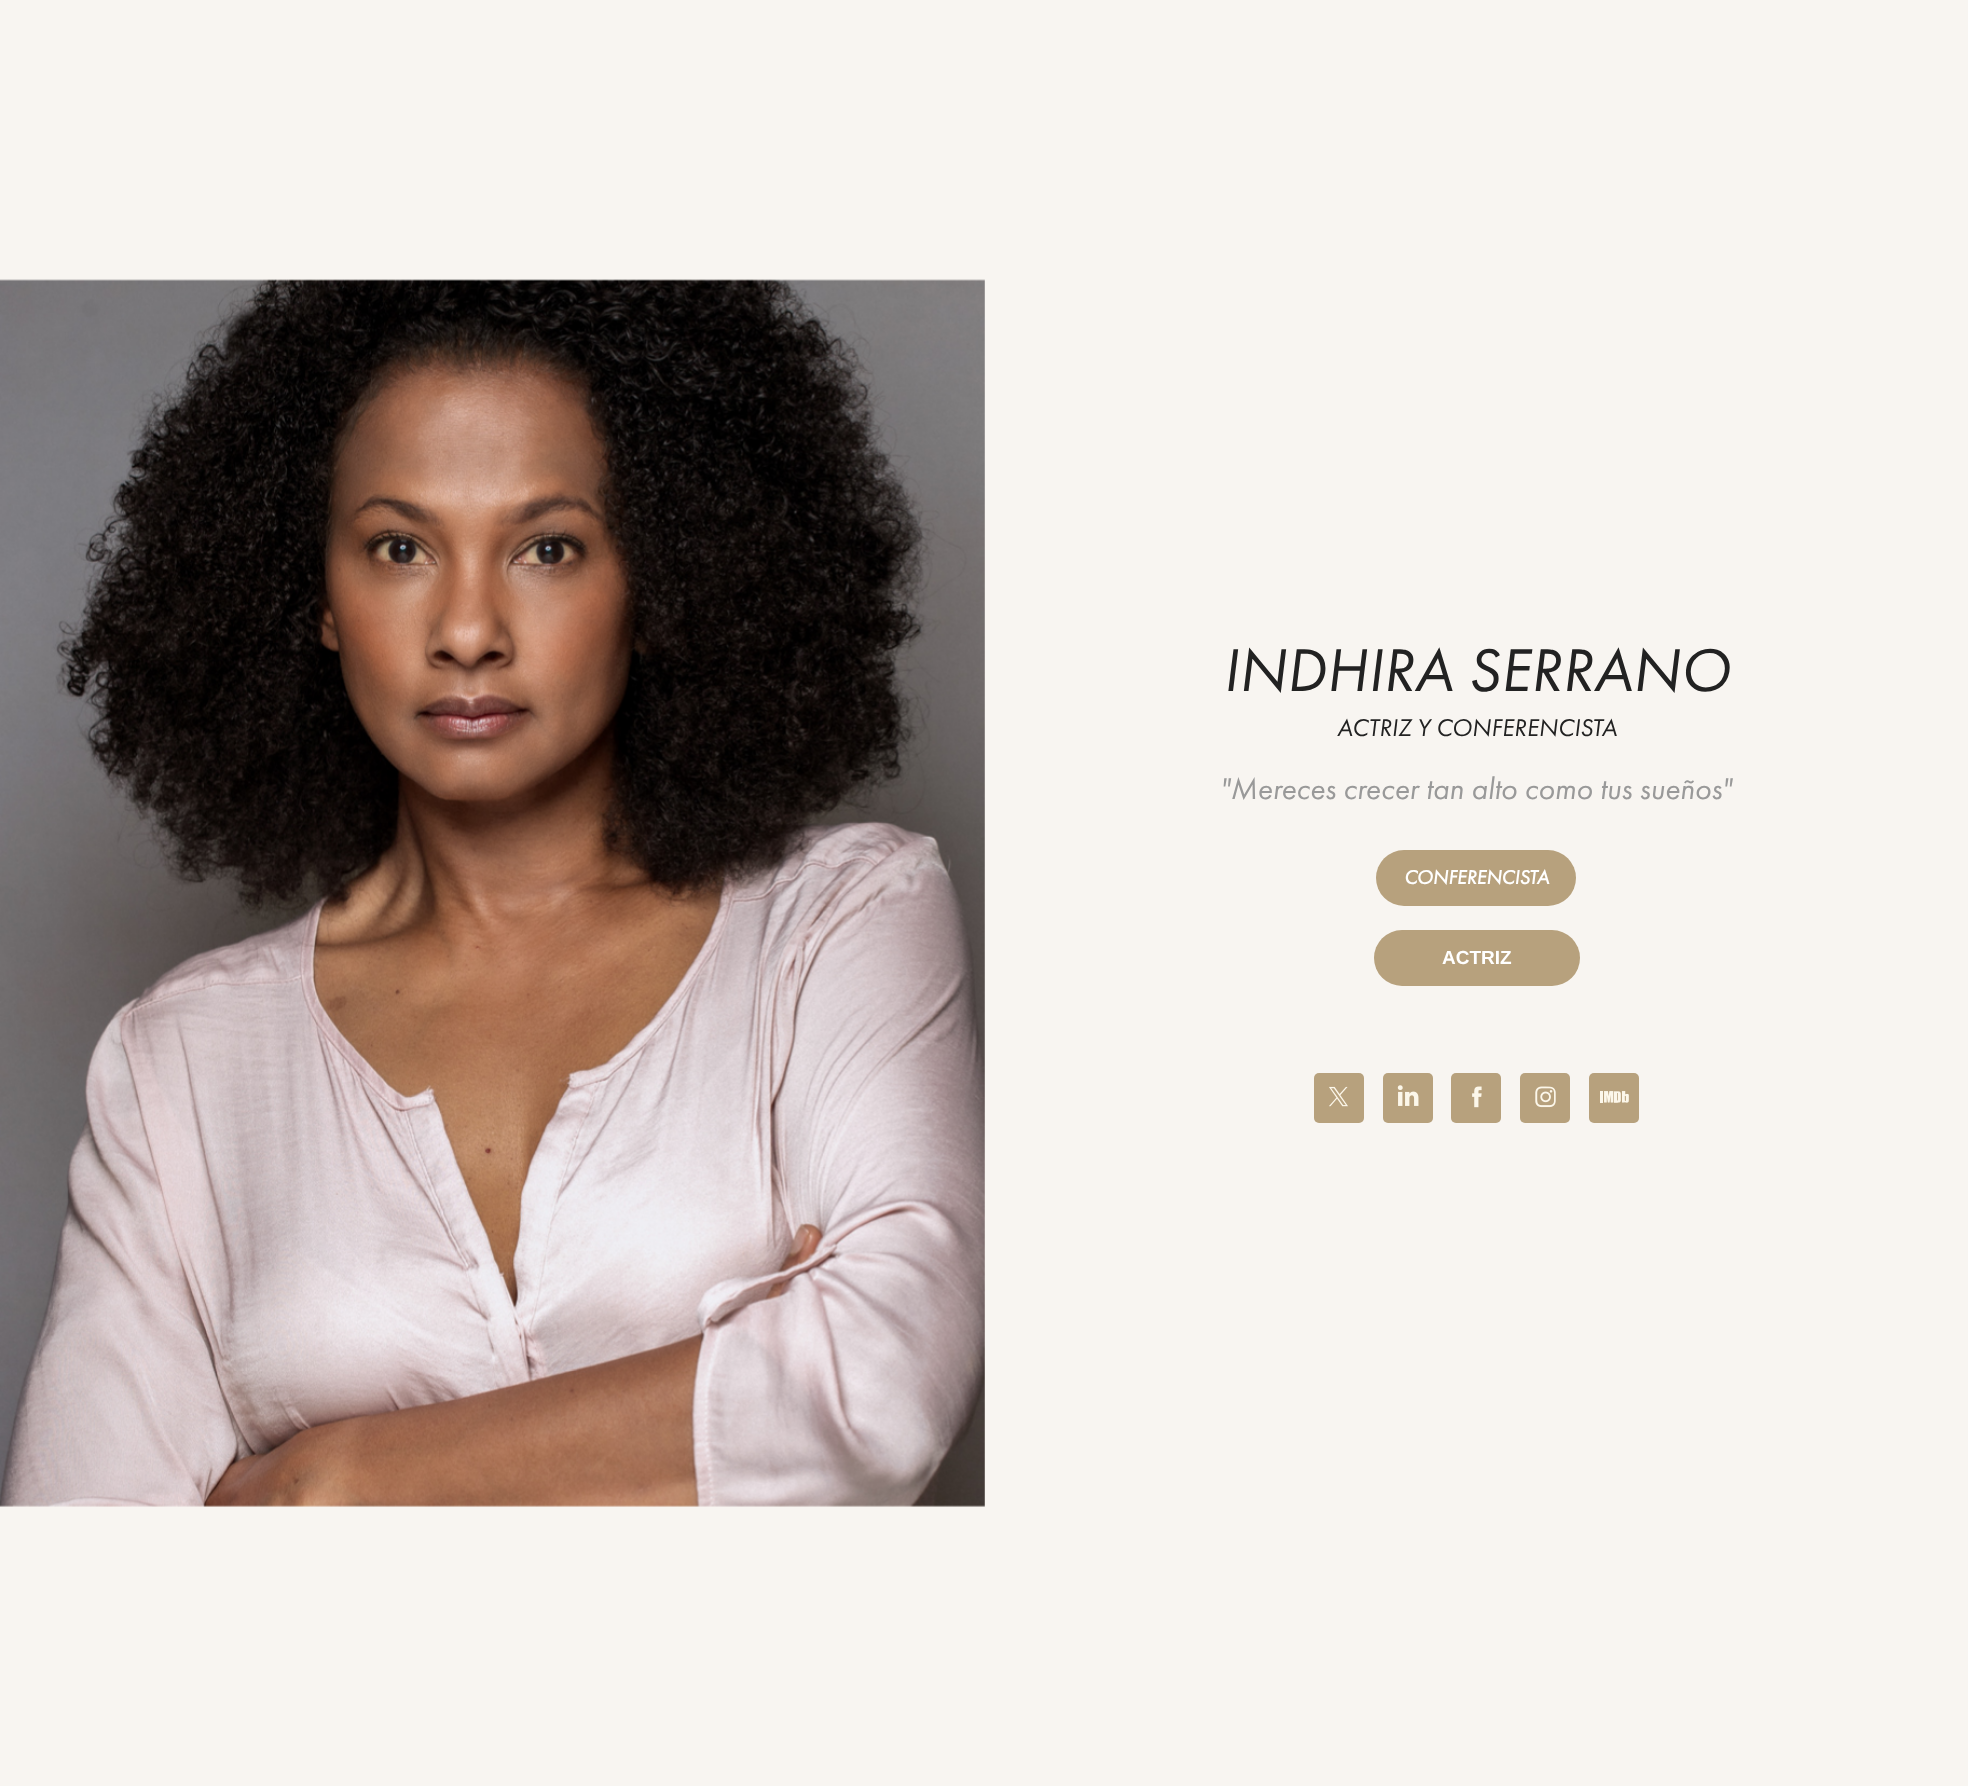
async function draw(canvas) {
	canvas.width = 1968;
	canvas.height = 1786;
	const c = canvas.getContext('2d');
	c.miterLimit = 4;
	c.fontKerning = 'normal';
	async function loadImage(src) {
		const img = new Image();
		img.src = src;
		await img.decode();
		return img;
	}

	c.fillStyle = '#f8f5f1';
	c.fillRect(0, 0, 1968, 1786);
	c.drawImage(await loadImage('img1.png'), 0, 279, 985, 1228);
	c.font = 'italic 62.5px Futura PT';
	c.fillStyle = '#222';
	c.fillText('INDHIRA SERRANO', 1223, 691);
	c.font = 'italic 25px Futura PT';
	c.fillText('ACTRIZ Y CONFERENCISTA', 1337, 736);
	c.font = 'italic 31.25px Futura PT';
	c.fillStyle = '#999';
	c.fillText('"Mereces crecer tan alto como tus sueños"', 1220, 799);
	c.fillStyle = '#b7a17d';
	c.beginPath();
	c.roundRect(1376, 850, 200, 56, 28);
	c.fill();
	c.font = 'italic bold 20px Futura PT';
	c.fillStyle = '#fff';
	c.fillText('CONFERENCISTA', 1404, 884);
	c.fillStyle = '#b7a17d';
	c.beginPath();
	c.roundRect(1374, 930, 206, 56, 28);
	c.fill();
	c.font = 'bold 19px Liberation Sans';
	c.fillStyle = '#fff';
	c.fillText('ACTRIZ', 1442, 964);
	c.fillStyle = '#b7a17d';
	c.beginPath();
	c.roundRect(1314, 1073, 50, 50, 5);
	c.fill();
	c.drawImage(await loadImage('img2.png'), 1329, 1086, 19, 21);
	c.beginPath();
	c.roundRect(1383, 1073, 50, 50, 5);
	c.fill();
	c.drawImage(await loadImage('img3.png'), 1397, 1085, 22, 21);
	c.beginPath();
	c.roundRect(1451, 1073, 50, 50, 5);
	c.fill();
	c.drawImage(await loadImage('img4.png'), 1472, 1086, 10, 22);
	c.beginPath();
	c.roundRect(1520, 1073, 50, 50, 5);
	c.fill();
	c.drawImage(await loadImage('img5.png'), 1535, 1086, 21, 22);
	c.beginPath();
	c.roundRect(1589, 1073, 50, 50, 5);
	c.fill();
	c.drawImage(await loadImage('img6.png'), 1600, 1091, 29, 12);
}

draw(document.querySelector('canvas'));
